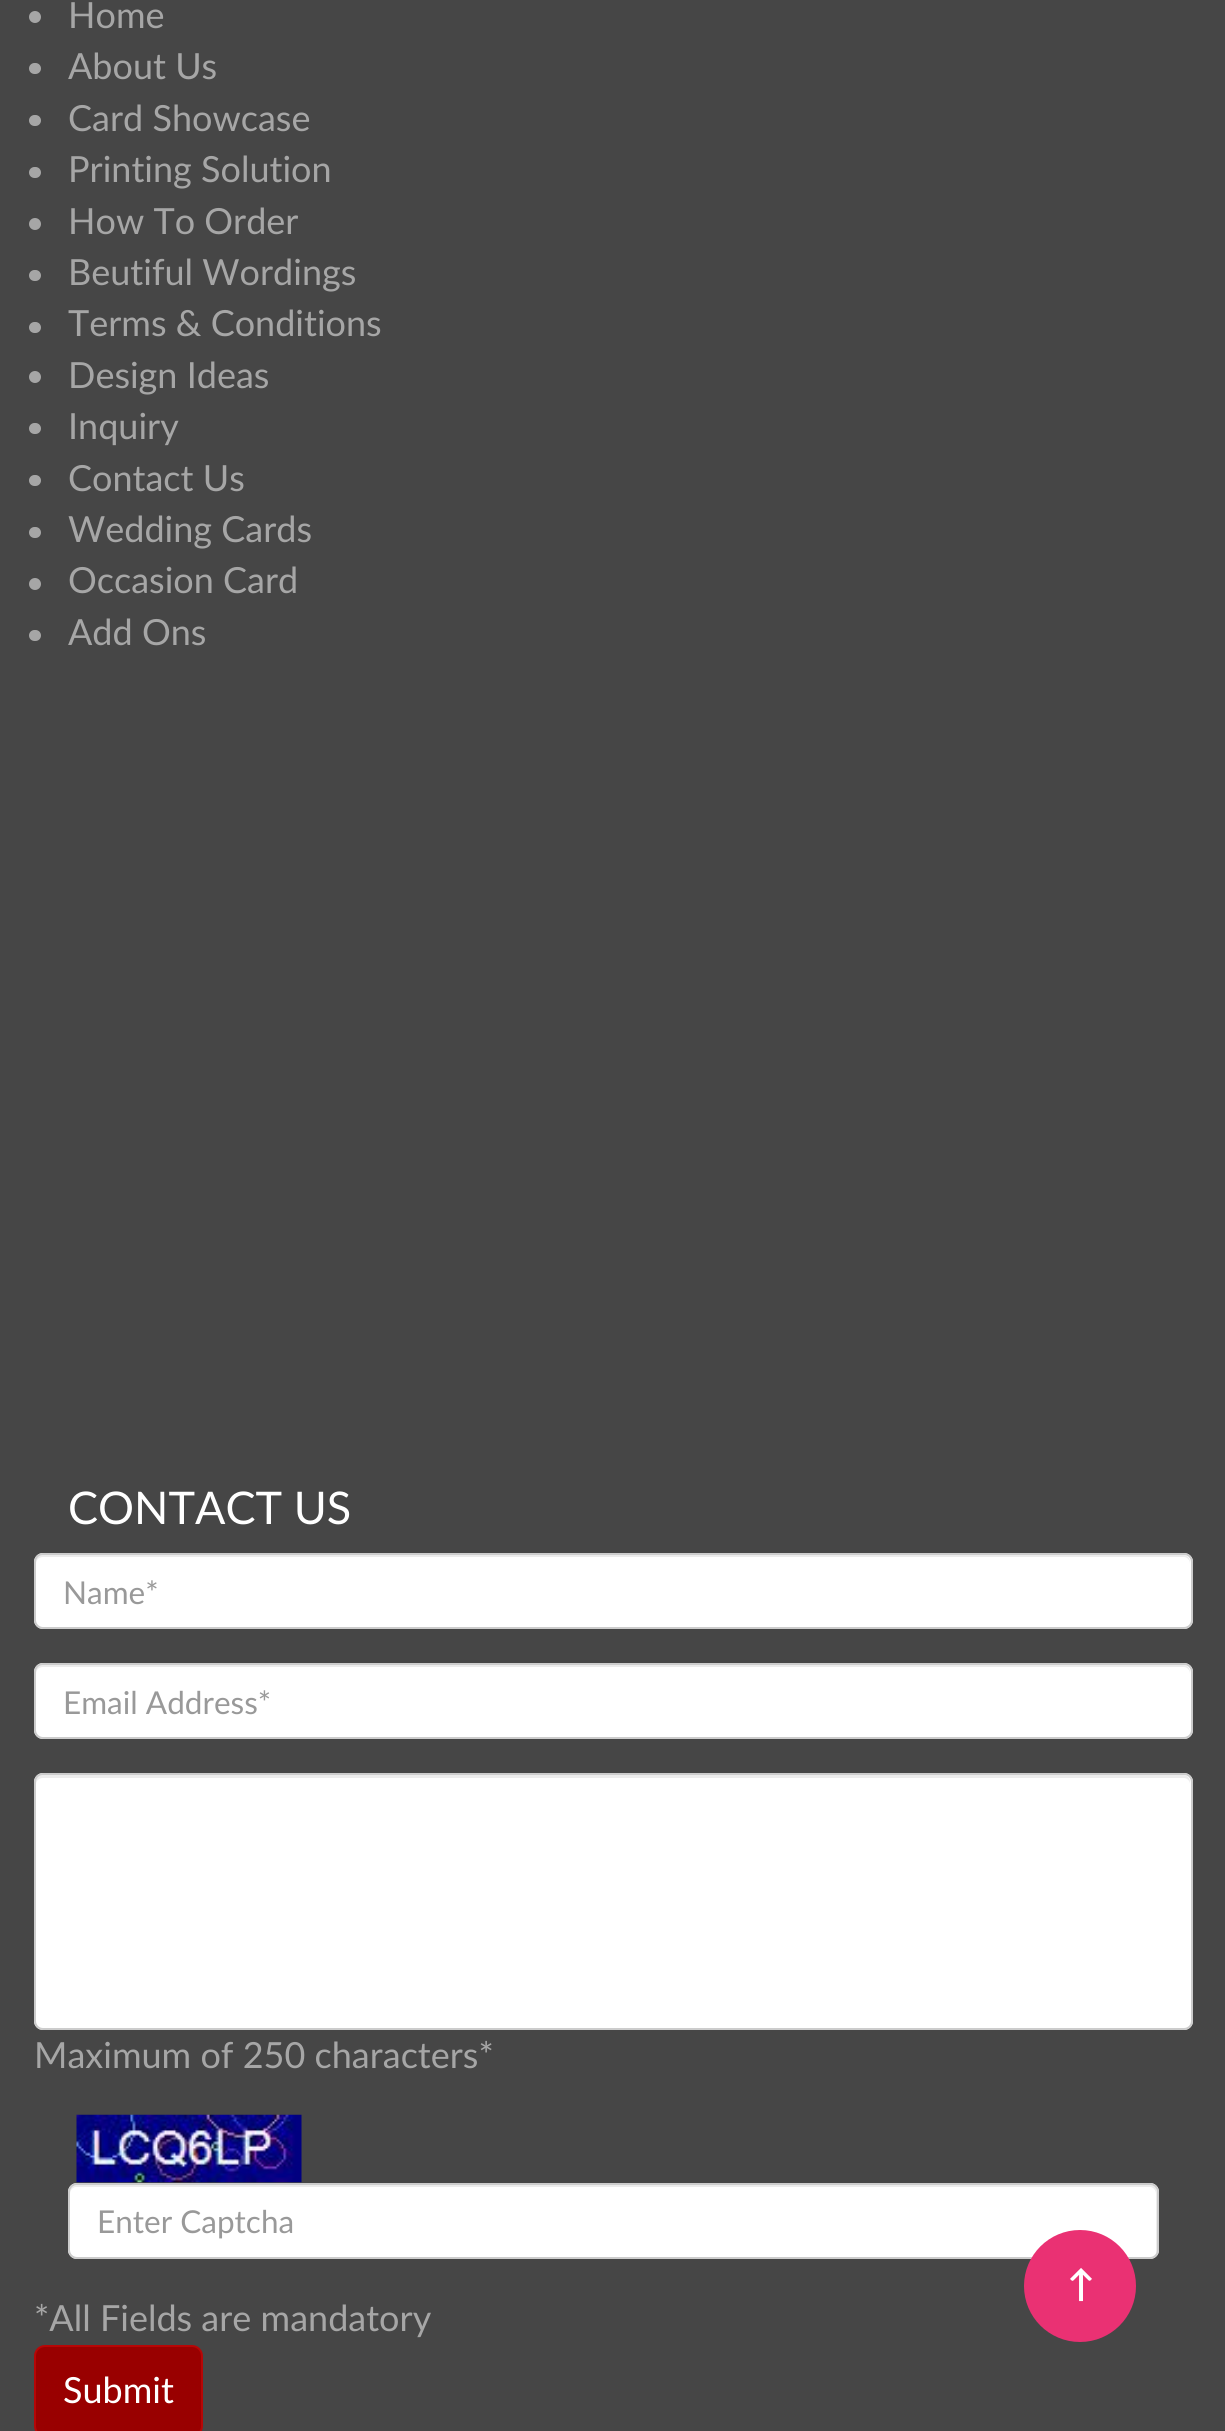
import math
import cairo

surface = cairo.ImageSurface(cairo.FORMAT_RGB24, 1225, 2431)
c = cairo.Context(surface)
options = cairo.FontOptions()
options.set_hint_metrics(cairo.HINT_METRICS_OFF)
options.set_hint_style(cairo.HINT_STYLE_NONE)
c.set_font_options(options)
c.set_miter_limit(4)
def C(code):
 c.set_source_rgb(*(v / 255 for v in bytes.fromhex(code[-6:])))
def F(family, size, italic, bold):
 c.select_font_face(family, cairo.FONT_SLANT_ITALIC if italic else cairo.FONT_SLANT_NORMAL, cairo.FONT_WEIGHT_BOLD if bold else cairo.FONT_WEIGHT_NORMAL)
 c.set_font_size(size)
def T(x, y, s):
 c.move_to(x, y)
 c.show_text(s)
def Q(x, y, w, h, r):
 c.new_sub_path()
 for i, (u, v) in enumerate([(x + w - r, y + h - r), (x + r, y + h - r), (x + r, y + r), (x + w - r, y + r)]):
  c.arc(u, v, r, i * math.pi / 2, (i + 1) * math.pi / 2)
 c.close_path()
def I(path, x, y, w, h):
 c.save()
 c.set_source_surface(cairo.ImageSurface.create_from_png(path), x, y)
 c.rectangle(x, y, w, h)
 c.fill()
 c.restore()
C('464646')
c.paint()
C('a6a6a6')
c.arc(35,17,6,0,2 * math.pi)
c.fill()
F('Lato',36,0,0)
T(68,28,'Home')
Q(29,63,12,11,5.5)
c.fill()
T(68,79,'About Us')
Q(29,115,12,11,5.5)
c.fill()
T(68,131,'Card Showcase')
Q(29,167,12,11,5.5)
c.fill()
T(68,182,'Printing Solution')
c.new_path()
c.arc(35,224,6,0,2 * math.pi)
c.fill()
T(68,234,'How To Order')
Q(29,270,12,11,5.5)
c.fill()
T(68,285,'Beutiful Wordings')
Q(29,322,12,11,5.5)
c.fill()
T(68,336,'Terms & Conditions')
c.new_path()
c.arc(35,377,6,0,2 * math.pi)
c.fill()
T(68,388,'Design Ideas')
Q(29,423,12,11,5.5)
c.fill()
T(68,439,'Inquiry')
Q(29,475,12,11,5.5)
c.fill()
T(68,491,'Contact Us')
Q(29,527,12,11,5.5)
c.fill()
T(68,542,'Wedding Cards')
c.new_path()
c.arc(35,584,6,0,2 * math.pi)
c.fill()
T(68,593,'Occasion Card')
Q(29,630,12,11,5.5)
c.fill()
T(68,645,'Add Ons')
F('Lato',45,0,0)
C('ffffff')
T(68,1524,'CONTACT US')
Q(34,1553,1159,76,9)
c.fill()
C('ececec')
c.new_path()
c.move_to(43,1557)
c.line_to(1184,1557)
c.curve_to(1187,1557,1190,1560,1190,1564)
c.line_to(1190,1562)
c.curve_to(1190,1558,1187,1555,1183,1555)
c.line_to(43,1555)
c.curve_to(39,1555,36,1558,36,1562)
c.line_to(36,1564)
c.curve_to(36,1560,39,1557,43,1557)
c.close_path()
c.fill()
Q(35,1554,1157,74,8)
C('cccccc')
c.stroke()
F('Lato',31.5,0,0)
C('999999')
T(63,1604,'Name*')
C('ffffff')
Q(34,1663,1159,76,9)
c.fill()
C('ececec')
c.new_path()
c.move_to(43,1667)
c.line_to(1184,1667)
c.curve_to(1187,1667,1190,1670,1190,1674)
c.line_to(1190,1672)
c.curve_to(1190,1668,1187,1665,1183,1665)
c.line_to(43,1665)
c.curve_to(39,1665,36,1668,36,1672)
c.line_to(36,1674)
c.curve_to(36,1670,39,1667,43,1667)
c.close_path()
c.fill()
Q(35,1664,1157,74,8)
C('cccccc')
c.stroke()
C('999999')
T(63,1714,'Email Address*')
C('ffffff')
Q(34,1773,1159,257,9)
c.fill()
C('ececec')
c.new_path()
c.move_to(43,1778)
c.line_to(1184,1778)
c.curve_to(1187,1778,1190,1781,1190,1784)
c.line_to(1190,1782)
c.curve_to(1190,1778,1187,1775,1183,1775)
c.line_to(43,1775)
c.curve_to(39,1775,36,1778,36,1782)
c.line_to(36,1784)
c.curve_to(36,1781,39,1778,43,1778)
c.close_path()
c.fill()
Q(35,1774,1157,255,8)
C('cccccc')
c.stroke()
F('Lato',36,0,0)
C('a6a6a6')
T(34,2068,'Maximum of 250 characters*')
I('1.png',76,2114,226,69)
C('ffffff')
Q(68,2183,1091,76,9)
c.fill()
C('ececec')
c.new_path()
c.move_to(76,2187)
c.line_to(1150,2187)
c.curve_to(1153,2187,1156,2190,1156,2194)
c.line_to(1156,2254)
c.curve_to(1157,2253,1157,2251,1157,2250)
c.line_to(1157,2192)
c.curve_to(1157,2188,1154,2185,1150,2185)
c.line_to(77,2185)
c.curve_to(73,2185,70,2188,70,2192)
c.line_to(70,2194)
c.curve_to(70,2190,73,2187,76,2187)
c.close_path()
c.fill()
Q(69,2184,1089,74,8)
C('cccccc')
c.stroke()
F('Lato',31.5,0,0)
C('999999')
T(97,2233,'Enter Captcha')
F('Lato',36,0,0)
C('a6a6a6')
T(34,2331,'*All Fields are mandatory')
C('990000')
Q(35,2346,167,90,10)
c.fill_preserve()
C('b70606')
c.stroke()
C('ffffff')
T(63,2403,'Submit')
C('ea3173')
c.new_path()
c.arc(1080,2286,56,0,2 * math.pi)
c.fill()
F('Lato',36,0,1)
C('ffffff')
T(1067,2297,'↑')
surface.write_to_png('o.png')
